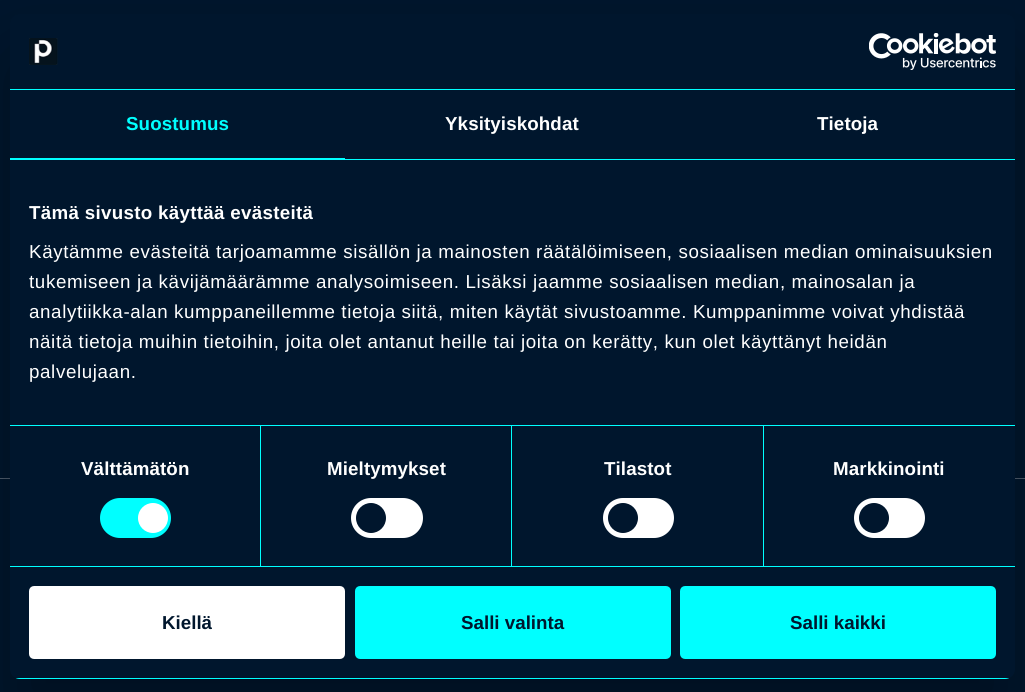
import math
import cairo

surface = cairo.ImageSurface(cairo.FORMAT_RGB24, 1025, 692)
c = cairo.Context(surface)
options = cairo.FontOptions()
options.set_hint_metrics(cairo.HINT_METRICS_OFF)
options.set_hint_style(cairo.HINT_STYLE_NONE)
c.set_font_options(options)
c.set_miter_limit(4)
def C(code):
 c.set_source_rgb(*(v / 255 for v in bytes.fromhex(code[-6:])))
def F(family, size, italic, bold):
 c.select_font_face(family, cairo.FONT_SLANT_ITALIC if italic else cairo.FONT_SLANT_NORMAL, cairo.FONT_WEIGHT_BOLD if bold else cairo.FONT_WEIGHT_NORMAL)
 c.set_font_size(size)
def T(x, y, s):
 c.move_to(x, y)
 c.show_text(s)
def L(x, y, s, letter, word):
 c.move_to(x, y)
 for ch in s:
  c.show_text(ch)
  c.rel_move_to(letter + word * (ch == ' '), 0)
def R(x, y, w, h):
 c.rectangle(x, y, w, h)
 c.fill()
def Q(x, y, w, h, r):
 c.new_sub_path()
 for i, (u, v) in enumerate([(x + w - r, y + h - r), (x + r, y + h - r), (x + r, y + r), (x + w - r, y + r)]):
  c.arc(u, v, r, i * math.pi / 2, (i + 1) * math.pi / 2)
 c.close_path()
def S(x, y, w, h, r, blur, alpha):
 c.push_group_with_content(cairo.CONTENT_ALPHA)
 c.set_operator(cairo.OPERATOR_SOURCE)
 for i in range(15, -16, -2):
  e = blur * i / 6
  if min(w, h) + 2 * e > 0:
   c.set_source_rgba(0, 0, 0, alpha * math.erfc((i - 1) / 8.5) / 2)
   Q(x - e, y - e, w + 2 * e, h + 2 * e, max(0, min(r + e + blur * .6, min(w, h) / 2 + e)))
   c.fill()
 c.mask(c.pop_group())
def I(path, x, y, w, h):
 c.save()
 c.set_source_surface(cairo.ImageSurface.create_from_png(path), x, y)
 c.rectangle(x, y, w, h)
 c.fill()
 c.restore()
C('00162d')
c.paint()
C('4d5c6c')
R(0,478,1025,1)
C('000000')
S(10,54,1005,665,10,42.5,.3)
C('00162d')
Q(10,14,1005,665,10)
c.fill()
C('00ffff')
R(10,89,1005,1)
I('1.png',29,38,29,27)
I('2.png',869,33,127,37)
R(10,159,1005,1)
R(10,158,335,1)
F('Liberation Sans',18.75,0,1)
L(126,130,'Suostumus',.1,0)
C('ffffff')
L(445,130,'Yksityiskohdat',.1,0)
L(817,130,'Tietoja',.1,0)
C('00ffff')
R(10,425,1005,1)
C('ffffff')
L(29,219,'Tämä sivusto käyttää evästeitä',.3,0)
F('Liberation Sans',18.75,0,0)
L(29,258,'Käytämme evästeitä tarjoamamme sisällön ja mainosten räätälöimiseen, sosiaalisen median ominaisuuksien',.62,0)
L(29,288,'tukemiseen ja kävijämäärämme analysoimiseen. Lisäksi jaamme sosiaalisen median, mainosalan ja',.62,0)
L(29,318,'analytiikka-alan kumppaneillemme tietoja siitä, miten käytät sivustoamme. Kumppanimme voivat yhdistää',.62,0)
L(29,348,'näitä tietoja muihin tietoihin, joita olet antanut heille tai joita on kerätty, kun olet käyttänyt heidän',.62,0)
L(29,378,'palvelujaan.',.62,0)
C('00ffff')
R(10,566,1005,1)
R(260,426,1,140)
F('Liberation Sans',18.75,0,1)
C('ffffff')
L(81,475,'Välttämätön',.1,0)
C('00ffff')
Q(100,498,71,40,20)
c.fill()
C('ffffff')
c.arc(153,518,15,0,2 * math.pi)
c.fill()
C('00ffff')
R(511,426,1,140)
C('ffffff')
L(327,475,'Mieltymykset',.1,0)
Q(351,498,72,40,20)
c.fill()
C('00162d')
c.arc(371,518,15,0,2 * math.pi)
c.fill()
C('00ffff')
R(763,426,1,140)
C('ffffff')
L(604,475,'Tilastot',.1,0)
Q(603,498,71,40,20)
c.fill()
C('00162d')
c.arc(623,518,15,0,2 * math.pi)
c.fill()
C('ffffff')
L(833,475,'Markkinointi',.1,0)
Q(854,498,71,40,20)
c.fill()
C('00162d')
c.arc(874,518,15,0,2 * math.pi)
c.fill()
c.save()
Q(10,14,1005,665,10)
c.clip()
C('00ffff')
R(10,678,1005,1)
c.restore()
C('ffffff')
Q(30.5,587.5,313,70,3.5)
c.fill_preserve()
c.set_line_width(3)
c.stroke()
C('00162d')
T(162,629,'Kiellä')
C('00ffff')
Q(356.5,587.5,313,70,3.5)
c.fill_preserve()
c.stroke()
C('00162d')
T(461,629,'Salli valinta')
C('00ffff')
Q(681.5,587.5,313,70,3.5)
c.fill_preserve()
c.stroke()
C('00162d')
T(790,629,'Salli kaikki')
surface.write_to_png('o.png')
